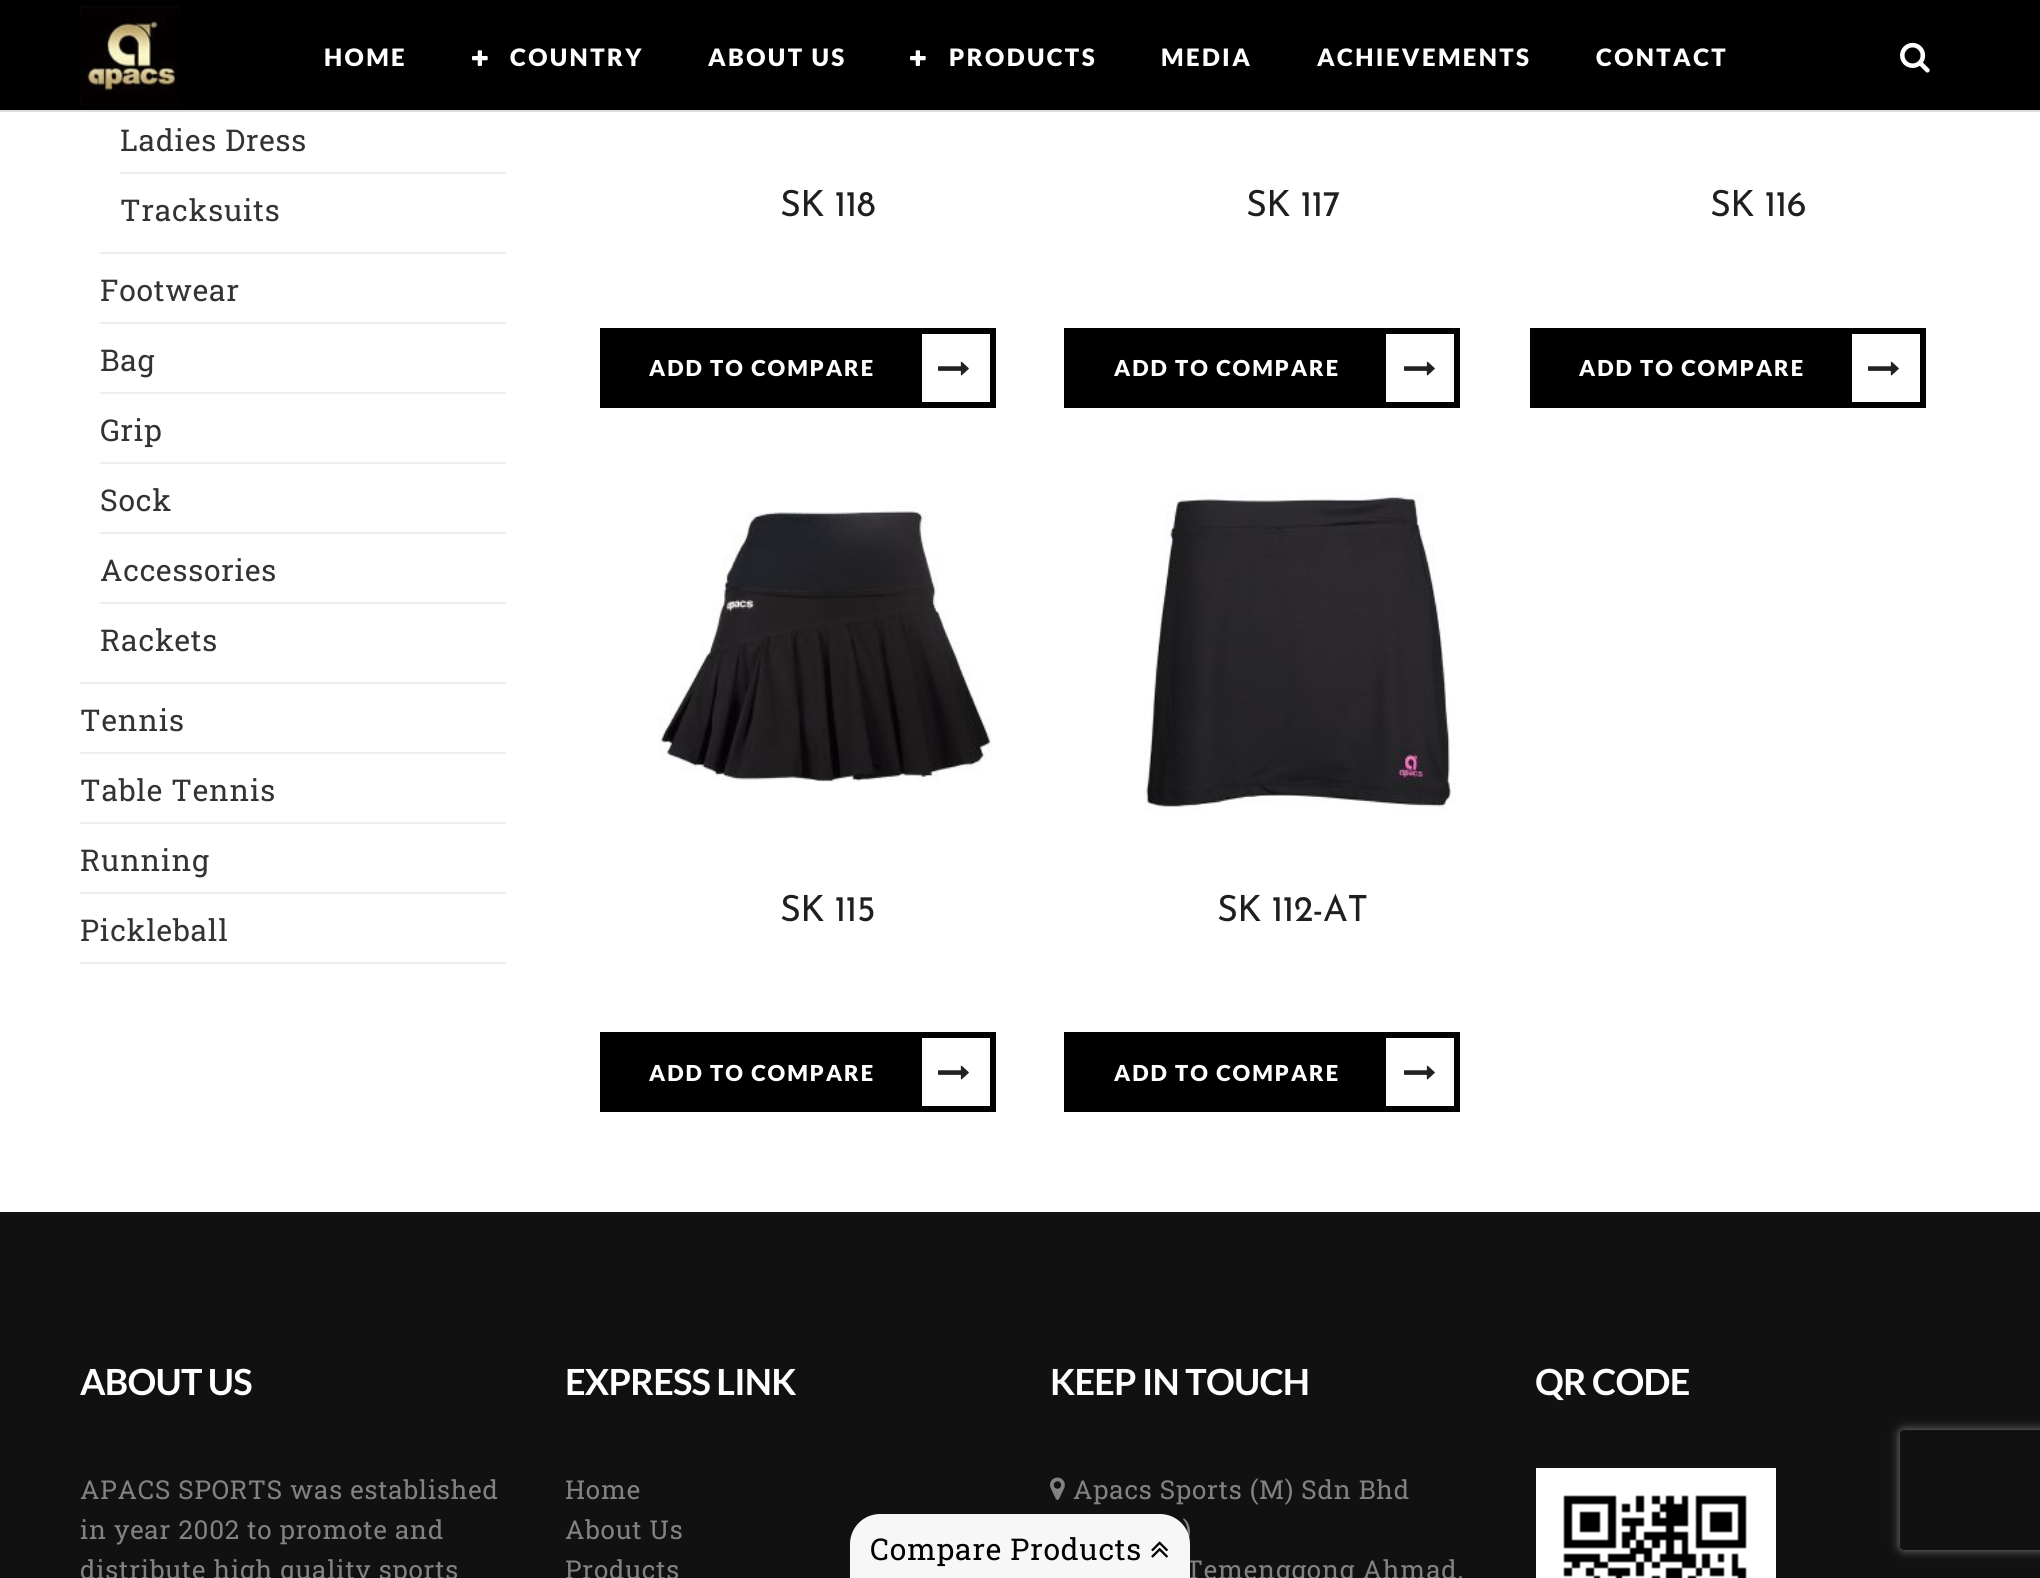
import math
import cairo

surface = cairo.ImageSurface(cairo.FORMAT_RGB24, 2040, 1578)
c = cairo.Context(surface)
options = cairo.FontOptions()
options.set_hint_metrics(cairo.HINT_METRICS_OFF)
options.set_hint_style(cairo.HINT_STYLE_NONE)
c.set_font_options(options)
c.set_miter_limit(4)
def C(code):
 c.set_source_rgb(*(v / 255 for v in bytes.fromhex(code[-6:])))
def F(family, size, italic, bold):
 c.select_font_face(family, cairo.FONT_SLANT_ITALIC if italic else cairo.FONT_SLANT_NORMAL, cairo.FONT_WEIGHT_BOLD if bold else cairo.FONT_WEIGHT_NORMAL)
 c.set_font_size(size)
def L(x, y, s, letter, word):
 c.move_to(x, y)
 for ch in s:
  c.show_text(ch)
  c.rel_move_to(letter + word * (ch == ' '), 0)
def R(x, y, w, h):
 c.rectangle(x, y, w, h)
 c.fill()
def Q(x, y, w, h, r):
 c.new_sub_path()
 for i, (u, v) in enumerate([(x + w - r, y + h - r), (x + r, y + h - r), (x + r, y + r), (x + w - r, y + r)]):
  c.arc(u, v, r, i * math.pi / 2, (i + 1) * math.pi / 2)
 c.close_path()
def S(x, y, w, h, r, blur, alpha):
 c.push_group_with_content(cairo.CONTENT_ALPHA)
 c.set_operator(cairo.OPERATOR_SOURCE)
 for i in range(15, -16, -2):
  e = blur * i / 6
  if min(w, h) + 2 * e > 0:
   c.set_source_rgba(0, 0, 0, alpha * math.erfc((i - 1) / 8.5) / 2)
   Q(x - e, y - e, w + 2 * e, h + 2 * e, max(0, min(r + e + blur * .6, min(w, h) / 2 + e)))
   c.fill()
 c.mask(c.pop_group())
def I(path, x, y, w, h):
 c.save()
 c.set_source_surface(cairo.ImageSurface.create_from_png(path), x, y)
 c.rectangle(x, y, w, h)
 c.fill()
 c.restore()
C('ffffff')
c.paint()
C('000000')
R(0,0,2040,110)
C('dddddd')
R(0,110,2040,2)
I('1.png',80,6,100,100)
F('Lato Black',24,0,0)
C('ffffff')
L(324,66,'HOME',2.4,0)
I('2.png',472,50,16,16)
L(510,66,'COUNTRY',2.4,0)
L(708,66,'ABOUT US',2.4,0)
I('2.png',910,50,16,16)
L(949,66,'PRODUCTS',2.4,0)
L(1161,66,'MEDIA',2.4,0)
L(1317,66,'ACHIEVEMENTS',2.4,0)
L(1596,66,'CONTACT',2.4,0)
I('3.png',1900,42,30,31)
C('eeeeee')
R(80,682,426,2)
R(100,252,406,2)
R(120,172,386,2)
F('Roboto Slab',30,0,0)
C('333333')
L(120,151,'Ladies Dress',.8,0)
L(120,221,'Tracksuits',.8,0)
C('eeeeee')
R(100,322,406,2)
C('333333')
L(100,301,'Footwear',.8,0)
C('eeeeee')
R(100,392,406,2)
C('333333')
L(100,371,'Bag',.8,0)
C('eeeeee')
R(100,462,406,2)
C('333333')
L(100,441,'Grip',.8,0)
C('eeeeee')
R(100,532,406,2)
C('333333')
L(100,511,'Sock',.8,0)
C('eeeeee')
R(100,602,406,2)
C('333333')
L(100,581,'Accessories',.8,0)
L(100,651,'Rackets',.8,0)
C('eeeeee')
R(80,752,426,2)
C('333333')
L(80,731,'Tennis',.8,0)
C('eeeeee')
R(80,822,426,2)
C('333333')
L(80,801,'Table Tennis',.8,0)
C('eeeeee')
R(80,892,426,2)
C('333333')
L(80,871,'Running',.8,0)
C('eeeeee')
R(80,962,426,2)
C('333333')
L(80,941,'Pickleball',.8,0)
F('Josefin Sans',36,0,0)
C('1f1f1f')
L(780,216,'SK 118',-.75,0)
C('000000')
R(600,328,396,80)
F('Lato Black',22,0,0)
C('ffffff')
L(649,376,'ADD TO COMPARE',2,0)
R(922,334,68,68)
I('4.png',938,361,31,15)
F('Josefin Sans',36,0,0)
C('1f1f1f')
L(1246,216,'SK 117',-.75,0)
C('000000')
R(1064,328,396,80)
F('Lato Black',22,0,0)
C('ffffff')
L(1114,376,'ADD TO COMPARE',2,0)
R(1386,334,68,68)
I('4.png',1404,361,31,15)
F('Josefin Sans',36,0,0)
C('1f1f1f')
L(1710,216,'SK 116',-.75,0)
C('000000')
R(1530,328,396,80)
F('Lato Black',22,0,0)
C('ffffff')
L(1579,376,'ADD TO COMPARE',2,0)
R(1852,334,68,68)
I('4.png',1868,361,31,15)
I('5.png',659,506,333,276)
F('Josefin Sans',36,0,0)
C('1f1f1f')
L(780,921,'SK 115',-.75,0)
C('000000')
R(600,1032,396,80)
F('Lato Black',22,0,0)
C('ffffff')
L(649,1081,'ADD TO COMPARE',2,0)
R(922,1038,68,68)
I('4.png',938,1065,31,15)
I('6.png',1144,491,312,323)
F('Josefin Sans',36,0,0)
C('1f1f1f')
L(1217,921,'SK 112-AT',-.75,0)
C('000000')
R(1064,1032,396,80)
F('Lato Black',22,0,0)
C('ffffff')
L(1114,1081,'ADD TO COMPARE',2,0)
R(1386,1038,68,68)
I('4.png',1404,1065,31,15)
C('111111')
R(0,1212,2040,366)
F('Lato',36,0,1)
C('ffffff')
L(80,1395,'ABOUT US',-.75,0)
F('Roboto Slab',26,0,0)
C('828282')
L(80,1499,'APACS SPORTS was established',.8,0)
L(80,1539,'in year 2002 to promote and',.8,0)
L(80,1579,'distribute high quality sports',.8,0)
F('Lato',36,0,1)
C('ffffff')
L(565,1395,'EXPRESS LINK',-.75,0)
F('Roboto Slab',26,0,0)
C('828282')
L(565,1499,'Home',.8,0)
L(565,1539,'About Us',.8,0)
L(565,1579,'Products',.8,0)
F('Lato',36,0,1)
C('ffffff')
L(1050,1395,'KEEP IN TOUCH',-.75,0)
I('7.png',1050,1477,15,23)
F('Roboto Slab',26,0,0)
C('828282')
L(1073,1499,'Apacs Sports (M) Sdn Bhd',.8,0)
L(1183,1539,')',.8,0)
L(1185,1579,'Temenggong Ahmad,',.8,0)
F('Lato',36,0,1)
C('ffffff')
L(1535,1395,'QR CODE',-.75,0)
I('8.png',1536,1468,240,110)
c.save()
c.set_fill_rule(cairo.FILL_RULE_EVEN_ODD)
c.new_path()
c.move_to(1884,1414)
c.line_to(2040,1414)
c.line_to(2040,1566)
c.line_to(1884,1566)
c.close_path()
c.move_to(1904,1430)
c.line_to(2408,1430)
c.curve_to(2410,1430,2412,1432,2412,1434)
c.line_to(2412,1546)
c.curve_to(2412,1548,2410,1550,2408,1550)
c.line_to(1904,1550)
c.curve_to(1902,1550,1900,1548,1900,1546)
c.line_to(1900,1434)
c.curve_to(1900,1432,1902,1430,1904,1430)
c.close_path()
c.clip()
C('808080')
S(1900,1430,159,120,4,5,1)
c.restore()
C('f7f7f7')
c.new_path()
c.move_to(880,1514)
c.line_to(1160,1514)
c.curve_to(1176.5,1514,1190,1527.5,1190,1544)
c.line_to(1190,1578)
c.line_to(850,1578)
c.line_to(850,1544)
c.curve_to(850,1527.5,863.5,1514,880,1514)
c.close_path()
c.fill()
F('Roboto Slab',30,0,0)
C('000000')
L(870,1560,'Compare Products',.8,0)
I('9.png',1151,1541,17,17)
surface.write_to_png('o.png')
